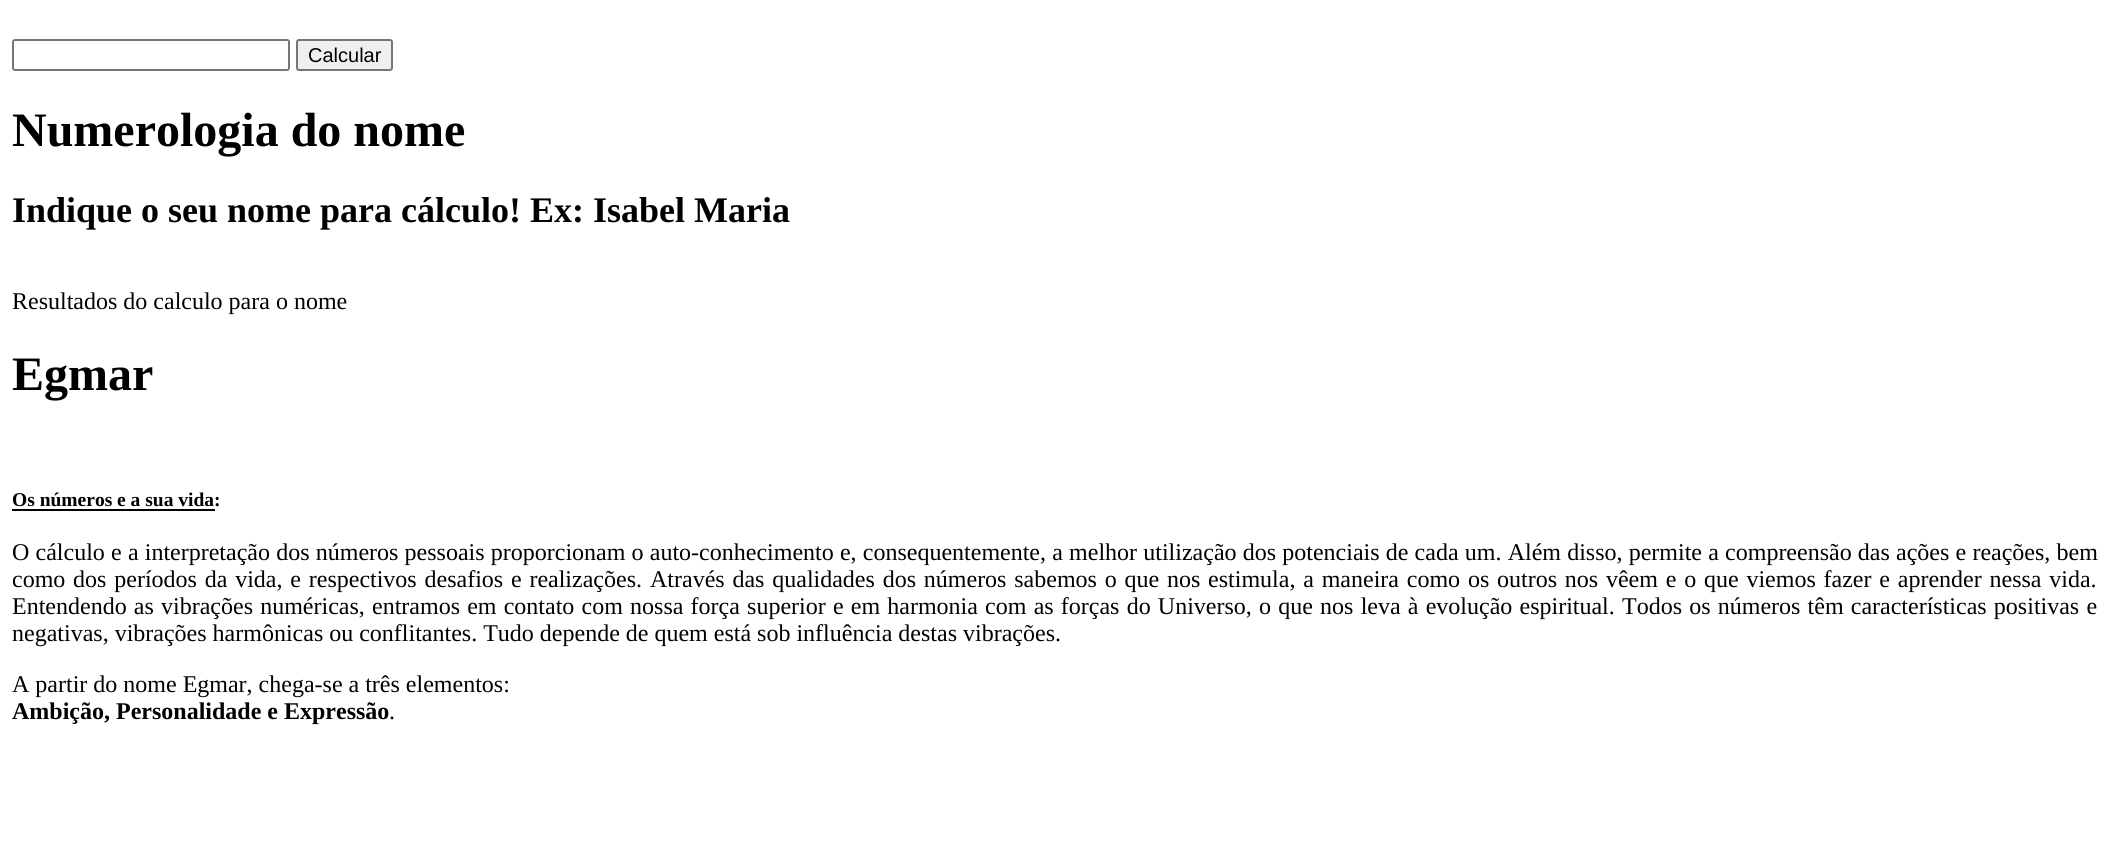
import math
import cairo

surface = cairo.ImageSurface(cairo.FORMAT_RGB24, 2108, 862)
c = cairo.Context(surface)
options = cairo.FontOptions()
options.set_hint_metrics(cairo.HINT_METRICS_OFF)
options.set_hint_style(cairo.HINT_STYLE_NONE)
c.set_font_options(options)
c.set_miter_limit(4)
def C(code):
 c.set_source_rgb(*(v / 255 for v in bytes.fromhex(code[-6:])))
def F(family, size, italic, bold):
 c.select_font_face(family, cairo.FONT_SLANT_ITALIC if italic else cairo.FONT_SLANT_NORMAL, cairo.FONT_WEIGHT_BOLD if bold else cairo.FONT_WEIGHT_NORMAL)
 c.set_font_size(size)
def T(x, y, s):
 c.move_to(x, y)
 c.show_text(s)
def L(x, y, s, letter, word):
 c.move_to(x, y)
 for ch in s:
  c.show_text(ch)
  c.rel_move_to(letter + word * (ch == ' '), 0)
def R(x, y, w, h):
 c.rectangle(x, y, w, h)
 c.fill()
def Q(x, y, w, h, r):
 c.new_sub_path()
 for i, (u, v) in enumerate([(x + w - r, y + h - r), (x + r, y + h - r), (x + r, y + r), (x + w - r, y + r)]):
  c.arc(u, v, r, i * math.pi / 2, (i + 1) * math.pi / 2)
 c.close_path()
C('ffffff')
c.paint()
Q(13,40,276,30,2)
C('767676')
c.stroke()
C('efefef')
Q(297,40,95,30,2)
c.fill_preserve()
C('767676')
c.stroke()
F('Liberation Sans',20,0,0)
C('000000')
T(308,62,'Calcular')
F('Liberation Serif',48,0,1)
T(12,146,'Numerologia do nome')
F('Liberation Serif',36,0,1)
T(12,222,'Indique o seu nome para cálculo! Ex: Isabel Maria')
F('Liberation Serif',24,0,0)
T(12,309,'Resultados do calculo para o nome')
F('Liberation Serif',48,0,1)
T(12,390,'Egmar')
F('Liberation Serif',19.5,0,1)
T(12,506,'Os números e a sua vida:')
R(12,509,203,2)
F('Liberation Serif',24,0,0)
L(12,560,'O cálculo e a interpretação dos números pessoais proporcionam o auto-conhecimento e, consequentemente, a melhor utilização dos potenciais de cada um. Além disso, permite a compreensão das ações e reações, bem',0,.2)
L(12,587,'como dos períodos da vida, e respectivos desafios e realizações.',0,1.8)
L(650,587,'Através das qualidades dos números sabemos o que nos estimula, a maneira como os outros nos vêem e o que viemos fazer e aprender nessa vida.',0,1.8)
L(12,614,'Entendendo as vibrações numéricas, entramos em contato com nossa força superior e em harmonia com as forças do Universo, o que nos leva à evolução espiritual. Todos os números têm características positivas e',0,1.2)
T(12,641,'negativas, vibrações harmônicas ou conflitantes. Tudo depende de quem está sob influência destas vibrações.')
T(12,692,'A partir do nome Egmar, chega-se a três elementos:')
F('Liberation Serif',24,0,1)
T(12,719,'Ambição, Personalidade e Expressão')
F('Liberation Serif',24,0,0)
T(389,719,'.')
surface.write_to_png('o.png')
